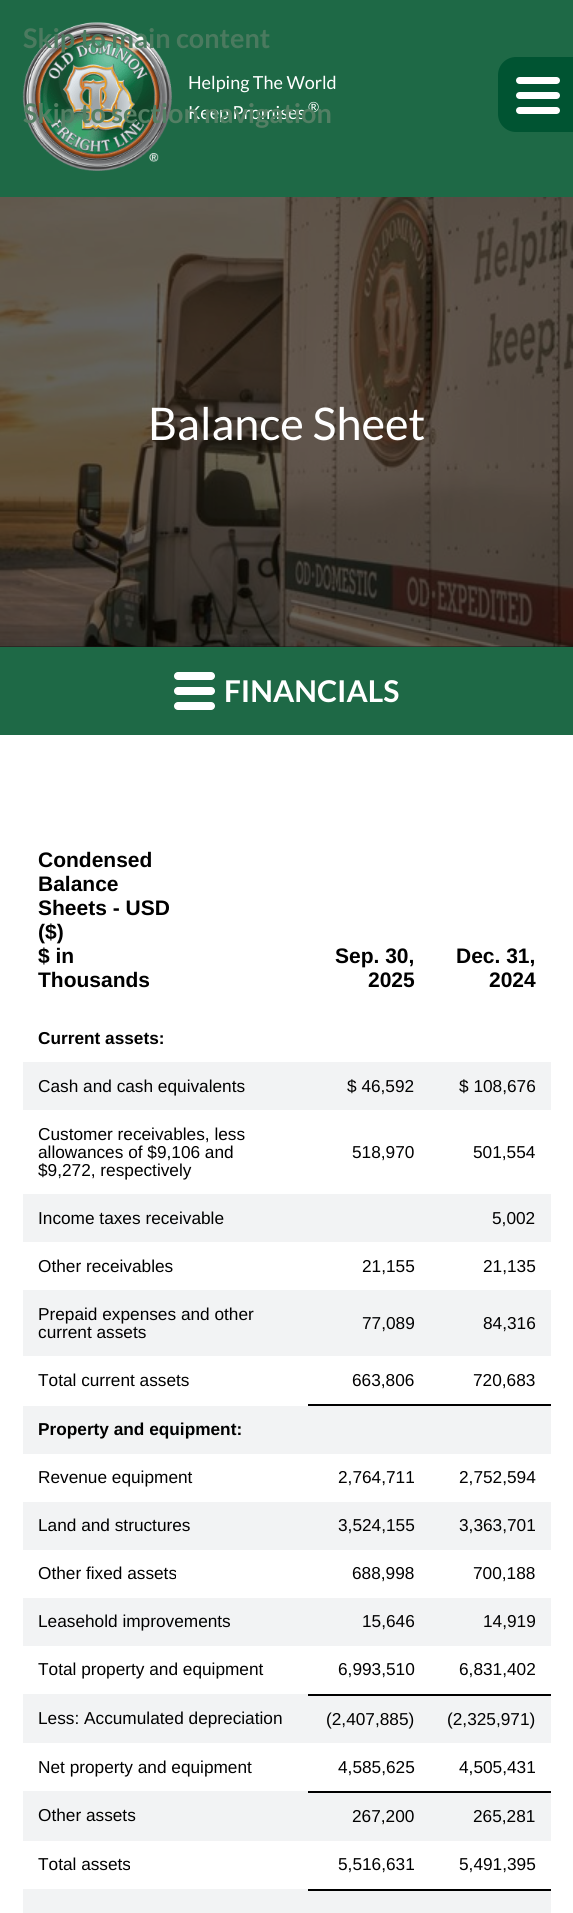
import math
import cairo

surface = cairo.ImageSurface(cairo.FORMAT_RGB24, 573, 1913)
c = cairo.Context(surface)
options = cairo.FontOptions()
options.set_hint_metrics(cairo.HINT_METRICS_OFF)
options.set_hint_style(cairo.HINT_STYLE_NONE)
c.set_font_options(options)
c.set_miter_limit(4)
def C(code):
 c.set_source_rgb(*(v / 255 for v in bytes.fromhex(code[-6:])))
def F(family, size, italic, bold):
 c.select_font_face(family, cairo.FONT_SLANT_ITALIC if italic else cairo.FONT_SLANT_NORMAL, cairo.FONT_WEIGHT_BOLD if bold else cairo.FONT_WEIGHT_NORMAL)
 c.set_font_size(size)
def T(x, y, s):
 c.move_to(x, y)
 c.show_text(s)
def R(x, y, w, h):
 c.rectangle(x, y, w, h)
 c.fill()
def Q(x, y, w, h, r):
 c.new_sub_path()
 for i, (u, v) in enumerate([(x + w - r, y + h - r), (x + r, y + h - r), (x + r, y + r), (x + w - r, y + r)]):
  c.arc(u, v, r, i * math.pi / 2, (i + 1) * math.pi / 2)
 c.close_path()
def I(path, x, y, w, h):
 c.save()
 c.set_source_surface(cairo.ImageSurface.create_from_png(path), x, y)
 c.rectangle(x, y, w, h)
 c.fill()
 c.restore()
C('ffffff')
c.paint()
C('1e6946')
R(0,0,573,197)
I('1.png',22,22,150,149)
F('Lato',27,0,1)
C('4b7a5f')
T(23,48,'Skip to main content')
F('Lato',18,0,0)
C('ffffff')
T(188,119,'Keep Promises')
F('Lato',14,0,0)
T(308,112,'®')
F('Lato',27,0,1)
C('547f64')
T(23,123,'Skip to section navigation')
F('Lato',18,0,0)
C('ffffff')
T(188,89,'Helping The World')
C('005432')
c.new_path()
c.move_to(516,57)
c.line_to(573,57)
c.line_to(573,132)
c.line_to(516,132)
c.curve_to(506,132,498,124,498,114)
c.line_to(498,75)
c.curve_to(498,65,506,57,516,57)
c.close_path()
c.fill()
C('ffffff')
Q(516,77,44,7,3.5)
c.fill()
Q(516,92,44,7,3.5)
c.fill()
Q(516,107,44,7,3.5)
c.fill()
C('141414')
R(0,646,573,1)
I('2.png',0,197,573,450)
F('Lato',45,0,0)
C('ffffff')
T(148,440,'Balance Sheet')
C('1e6946')
R(0,647,573,88)
C('ffffff')
Q(174,672,41,8,4)
c.fill()
Q(174,687,41,8,4)
c.fill()
Q(174,702,41,8,4)
c.fill()
F('Lato',30,0,1)
T(224,702,'FINANCIALS')
F('Liberation Sans',21,0,1)
C('000000')
T(38,867,'Condensed')
T(38,891,'Balance')
T(38,915,'Sheets - USD')
T(38,939,'($)')
T(38,963,'$ in')
T(38,987,'Thousands')
T(335,963,'Sep. 30,')
T(368,987,'2025')
T(456,963,'Dec. 31,')
T(489,987,'2024')
F('Liberation Sans',17.25,0,1)
T(38,1044,'Current assets:')
C('f2f3f4')
R(23,1062,528,48)
F('Liberation Sans',17.25,0,0)
C('000000')
T(38,1092,'Cash and cash equivalents')
T(347,1092,'$ 46,592')
T(459,1092,'$ 108,676')
T(38,1140,'Customer receivables, less')
T(38,1158,'allowances of $9,106 and')
T(38,1176,'$9,272, respectively')
T(352,1158,'518,970')
T(473,1158,'501,554')
C('f2f3f4')
R(23,1194,528,48)
C('000000')
T(38,1224,'Income taxes receivable')
T(492,1224,'5,002')
T(38,1272,'Other receivables')
T(362,1272,'21,155')
T(483,1272,'21,135')
C('f2f3f4')
R(23,1290,528,66)
C('000000')
T(38,1320,'Prepaid expenses and other')
T(38,1338,'current assets')
T(362,1329,'77,089')
T(483,1329,'84,316')
T(38,1386,'Total current assets')
T(352,1386,'663,806')
R(308,1404,243,2)
T(473,1386,'720,683')
C('f2f3f4')
R(23,1406,528,48)
F('Liberation Sans',17.25,0,1)
C('000000')
T(38,1435,'Property and equipment:')
F('Liberation Sans',17.25,0,0)
T(38,1483,'Revenue equipment')
T(338,1483,'2,764,711')
T(459,1483,'2,752,594')
C('f2f3f4')
R(23,1502,528,48)
C('000000')
T(38,1531,'Land and structures')
T(338,1531,'3,524,155')
T(459,1531,'3,363,701')
T(38,1579,'Other fixed assets')
T(352,1579,'688,998')
T(473,1579,'700,188')
C('f2f3f4')
R(23,1598,528,48)
C('000000')
T(38,1627,'Leasehold improvements')
T(362,1627,'15,646')
T(483,1627,'14,919')
T(38,1675,'Total property and equipment')
T(338,1675,'6,993,510')
C('f2f3f4')
R(23,1694,528,49)
C('000000')
R(308,1694,243,2)
T(459,1675,'6,831,402')
T(38,1724,'Less: Accumulated depreciation')
T(326,1725,'(2,407,885)')
T(447,1725,'(2,325,971)')
T(38,1773,'Net property and equipment')
T(338,1773,'4,585,625')
C('f2f3f4')
R(23,1791,528,50)
C('000000')
R(308,1791,243,2)
T(459,1773,'4,505,431')
T(38,1821,'Other assets')
T(352,1822,'267,200')
T(473,1822,'265,281')
T(38,1870,'Total assets')
T(338,1870,'5,516,631')
C('f2f3f4')
R(23,1889,528,24)
C('000000')
R(308,1889,243,2)
T(459,1870,'5,491,395')
surface.write_to_png('o.png')
